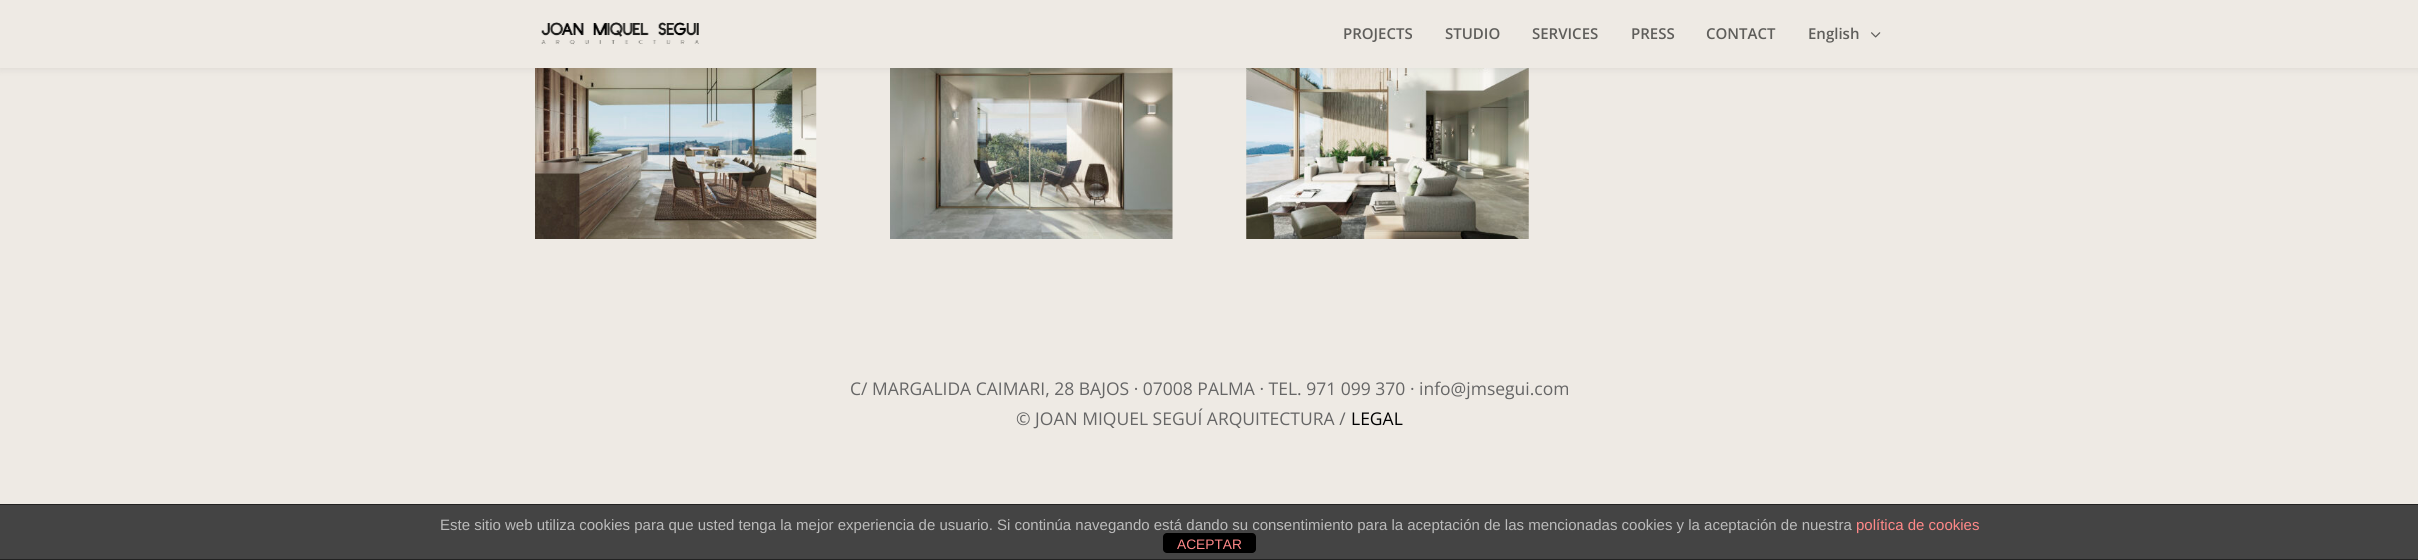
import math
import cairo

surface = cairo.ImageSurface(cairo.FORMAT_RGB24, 2418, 560)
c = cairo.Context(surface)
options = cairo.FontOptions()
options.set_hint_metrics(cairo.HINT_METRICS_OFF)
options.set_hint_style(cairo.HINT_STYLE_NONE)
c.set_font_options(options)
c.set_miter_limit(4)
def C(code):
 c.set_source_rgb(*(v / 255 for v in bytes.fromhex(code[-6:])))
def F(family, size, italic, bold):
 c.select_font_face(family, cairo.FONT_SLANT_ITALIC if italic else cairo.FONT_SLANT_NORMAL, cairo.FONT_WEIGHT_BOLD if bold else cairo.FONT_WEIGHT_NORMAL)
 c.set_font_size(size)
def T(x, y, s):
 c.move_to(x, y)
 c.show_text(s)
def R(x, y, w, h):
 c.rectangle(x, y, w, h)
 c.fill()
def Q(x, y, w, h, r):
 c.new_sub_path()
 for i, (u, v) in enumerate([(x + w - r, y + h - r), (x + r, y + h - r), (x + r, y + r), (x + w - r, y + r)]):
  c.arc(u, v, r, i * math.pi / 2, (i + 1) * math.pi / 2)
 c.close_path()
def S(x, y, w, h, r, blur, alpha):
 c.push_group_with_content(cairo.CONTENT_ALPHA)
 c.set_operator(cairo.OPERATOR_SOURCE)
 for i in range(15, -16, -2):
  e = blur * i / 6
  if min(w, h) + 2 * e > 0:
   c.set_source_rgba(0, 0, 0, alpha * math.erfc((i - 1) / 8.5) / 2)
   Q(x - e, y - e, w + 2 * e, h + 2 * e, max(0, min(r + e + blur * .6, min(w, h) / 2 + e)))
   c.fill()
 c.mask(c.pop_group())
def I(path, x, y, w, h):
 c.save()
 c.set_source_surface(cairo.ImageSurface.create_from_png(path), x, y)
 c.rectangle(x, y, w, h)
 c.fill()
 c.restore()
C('eeeae4')
c.paint()
I('3.png',535,68,282,171)
I('4.png',890,68,283,171)
I('5.png',1246,68,283,171)
C('000000')
S(0,0,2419,68,0,4.5,.1)
C('eeeae4')
R(0,0,2418,68)
I('1.png',541,22,158,23)
F('Open Sans SemiBold',15,0,0)
C('5f5e5b')
T(1343,39,'PROJECTS')
T(1445,39,'STUDIO')
T(1532,39,'SERVICES')
T(1631,39,'PRESS')
T(1706,39,'CONTACT')
T(1808,39,'English')
I('2.png',1871,32,10,6)
F('Open Sans',17.5,0,0)
C('666666')
T(850,395,'C/ MARGALIDA CAIMARI, 28 BAJOS · 07008 PALMA · TEL. 971 099 370 · info@jmsegui.com')
T(1016,425,'© JOAN MIQUEL SEGUÍ ARQUITECTURA /')
C('000000')
T(1351,425,'LEGAL')
C('444444')
R(0,505,2418,54)
C('222222')
R(0,504,2418,1)
R(0,559,2418,1)
C('000000')
Q(1163,533,93,20,4)
c.fill()
F('Liberation Sans',15,0,0)
C('bbbbbb')
T(440,530,'Este sitio web utiliza cookies para que usted tenga la mejor experiencia de usuario. Si continúa navegando está dando su consentimiento para la aceptación de las mencionadas cookies y la aceptación de nuestra')
C('ff8888')
T(1856,530,'política de cookies')
F('Liberation Sans',13.75,0,0)
T(1177,549,'ACEPTAR')
surface.write_to_png('o.png')
